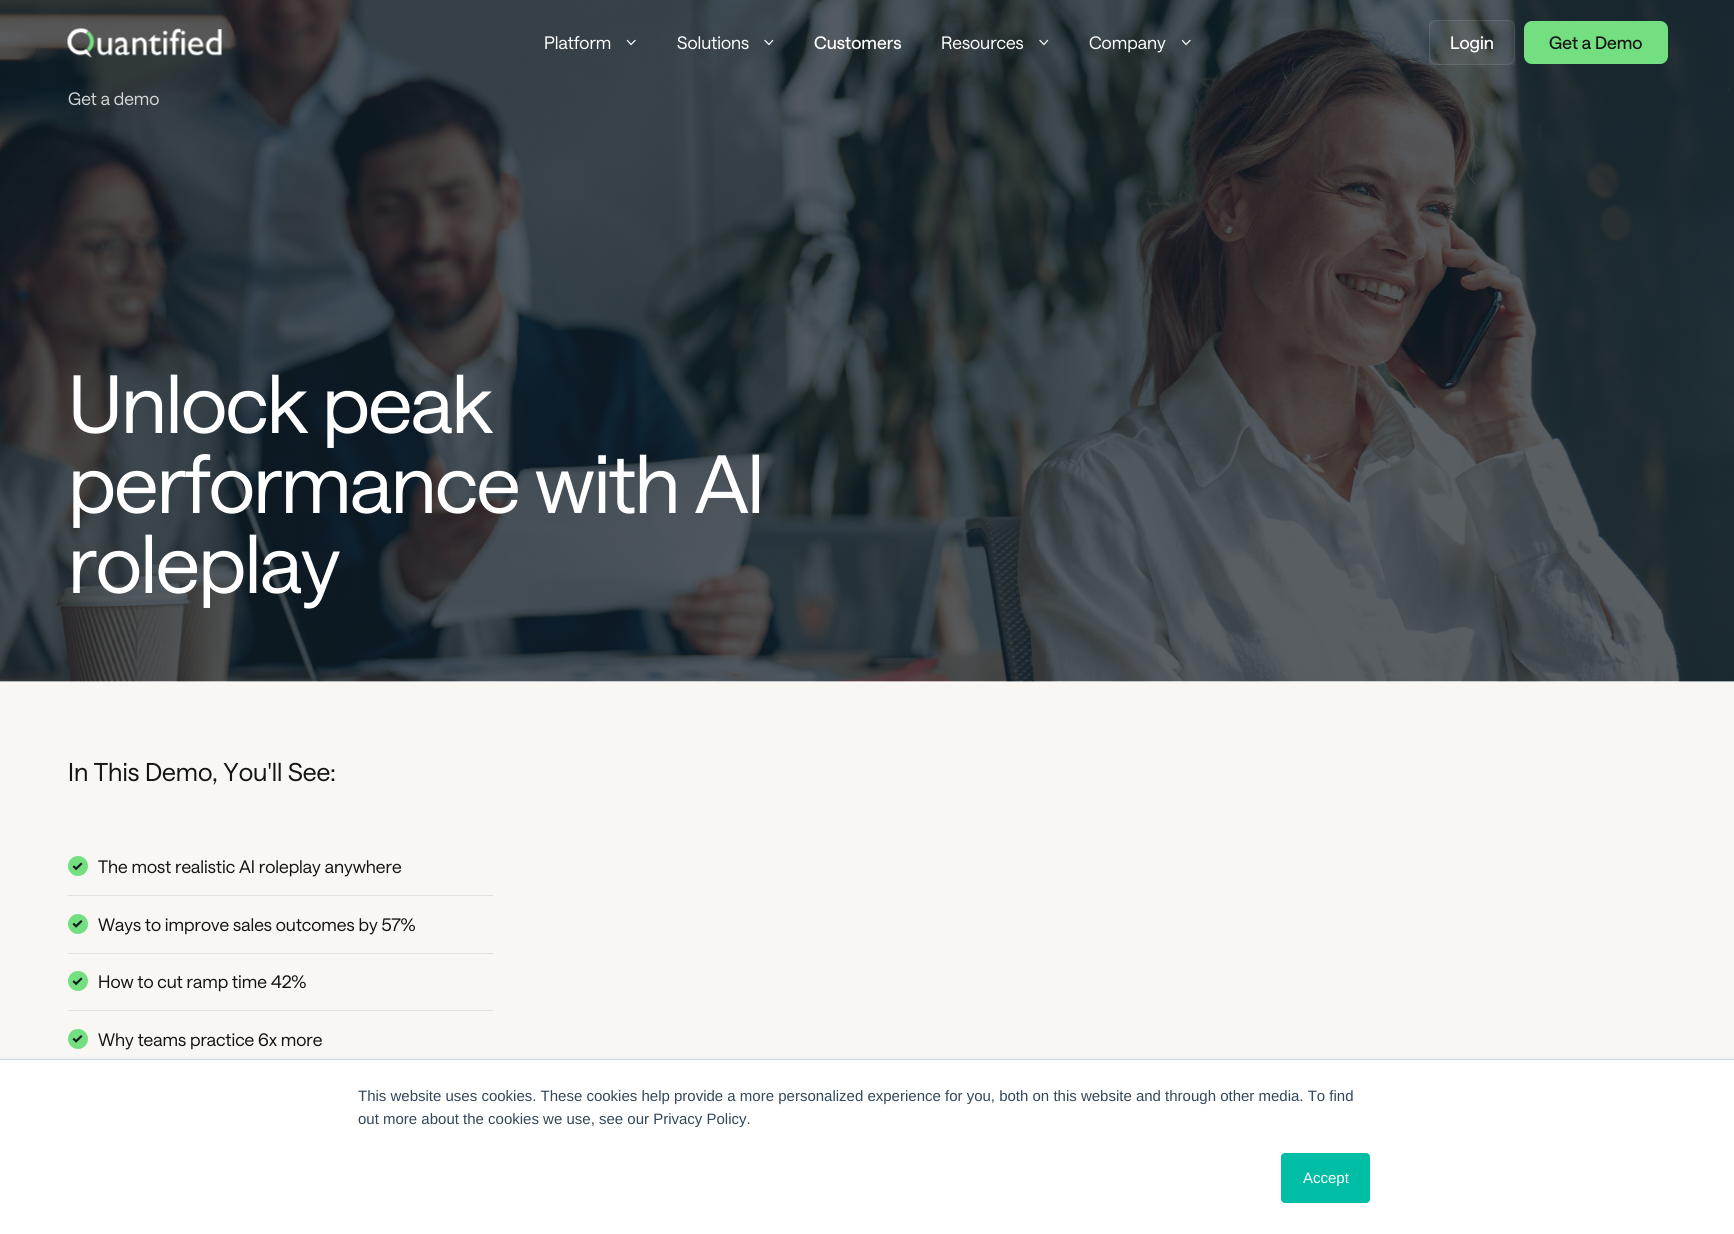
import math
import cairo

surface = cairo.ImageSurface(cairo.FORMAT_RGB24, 1734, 1234)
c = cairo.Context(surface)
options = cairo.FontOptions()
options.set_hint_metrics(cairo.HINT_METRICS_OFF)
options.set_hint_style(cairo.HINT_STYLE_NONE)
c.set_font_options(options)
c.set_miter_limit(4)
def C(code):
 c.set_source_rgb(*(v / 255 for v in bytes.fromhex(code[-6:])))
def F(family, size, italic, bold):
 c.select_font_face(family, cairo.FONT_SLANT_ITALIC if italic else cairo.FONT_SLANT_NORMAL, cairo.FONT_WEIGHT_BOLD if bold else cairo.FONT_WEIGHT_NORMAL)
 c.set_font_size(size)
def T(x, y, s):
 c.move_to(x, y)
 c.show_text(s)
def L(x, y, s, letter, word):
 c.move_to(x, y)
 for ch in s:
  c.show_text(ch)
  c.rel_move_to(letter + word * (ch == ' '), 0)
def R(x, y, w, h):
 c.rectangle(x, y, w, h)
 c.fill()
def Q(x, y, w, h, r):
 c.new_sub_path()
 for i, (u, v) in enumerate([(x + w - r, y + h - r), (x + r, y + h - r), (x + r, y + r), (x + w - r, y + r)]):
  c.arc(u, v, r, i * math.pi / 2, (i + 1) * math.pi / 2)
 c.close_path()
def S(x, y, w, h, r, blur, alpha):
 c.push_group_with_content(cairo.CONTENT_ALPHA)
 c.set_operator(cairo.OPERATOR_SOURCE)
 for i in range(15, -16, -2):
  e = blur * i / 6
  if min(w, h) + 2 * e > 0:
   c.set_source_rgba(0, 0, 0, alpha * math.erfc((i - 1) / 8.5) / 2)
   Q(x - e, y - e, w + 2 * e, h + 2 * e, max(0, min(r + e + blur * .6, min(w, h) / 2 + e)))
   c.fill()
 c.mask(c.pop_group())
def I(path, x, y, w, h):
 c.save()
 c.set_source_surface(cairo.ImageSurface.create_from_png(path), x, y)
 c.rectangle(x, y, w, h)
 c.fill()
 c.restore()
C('f8f7f4')
c.paint()
I('1.png',0,0,1734,682)
I('2.png',67,28,155,30)
F('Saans',17.5,0,0)
C('ffffff')
T(544,49,'Platform')
c.new_path()
c.move_to(627.5,40.5)
c.line_to(631,44.5)
c.line_to(635,40.5)
c.set_line_width(1.2)
c.set_line_cap(cairo.LINE_CAP_SQUARE)
c.stroke()
T(677,49,'Solutions')
c.new_path()
c.move_to(765,40.5)
c.line_to(769,44.5)
c.line_to(772.5,40.5)
c.stroke()
F('Saans Medium',17.5,0,0)
T(814,49,'Customers')
F('Saans',17.5,0,0)
T(941,49,'Resources')
c.new_path()
c.move_to(1040,40.5)
c.line_to(1044,44.5)
c.line_to(1047.5,40.5)
c.stroke()
T(1089,49,'Company')
c.new_path()
c.move_to(1182.5,40.5)
c.line_to(1186,44.5)
c.line_to(1190,40.5)
c.stroke()
c.set_source_rgba(1,1,1,0.05)
R(1429,20,86,45)
Q(1429.5,20.5,85,44,7.5)
c.set_source_rgba(1,1,1,0.1)
c.set_line_width(1)
c.set_line_cap(cairo.LINE_CAP_BUTT)
c.stroke()
F('Saans Medium',17.5,0,0)
C('ffffff')
T(1450,49,'Login')
C('73df81')
Q(1524,21,144,43,8)
c.fill()
C('141414')
T(1549,49,'Get a Demo')
F('Saans',17.5,0,0)
C('d4d6d7')
T(68,105,'Get a demo')
F('Saans',80,0,0)
C('ffffff')
L(68,433,'Unlock peak',-1.6,0)
L(68,513,'performance with Al',-1.6,0)
L(68,593,'roleplay',-1.6,0)
F('Saans',25,0,0)
C('141414')
T(68,781,'In This Demo, You\'ll See:')
I('3.png',68,856,20,20)
C('e1e1df')
R(68,895,425,1)
F('Saans',17.5,0,0)
C('141414')
T(98,873,'The most realistic AI roleplay anywhere')
I('4.png',68,914,20,20)
C('e1e1df')
R(68,953,425,1)
C('141414')
T(98,931,'Ways to improve sales outcomes by 57%')
I('3.png',68,971,20,20)
C('e1e1df')
R(68,1010,425,1)
C('141414')
T(98,988,'How to cut ramp time 42%')
I('4.png',68,1029,20,20)
T(98,1046,'Why teams practice 6x more')
C('eaf0f6')
S(0,1058,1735,176,0,2,1)
C('ffffff')
R(0,1060,1734,174)
C('cbd6e2')
R(0,1059,1734,1)
F('Liberation Sans',15,0,0)
C('33475b')
T(358,1101,'This website uses cookies. These cookies help provide a more personalized experience for you, both on this website and through other media. To find')
T(358,1124,'out more about the cookies we use, see our Privacy Policy.')
C('00bda5')
Q(1281.5,1153.5,88,49,3.5)
c.fill_preserve()
c.stroke()
C('ffffff')
T(1303,1183,'Accept')
surface.write_to_png('o.png')
